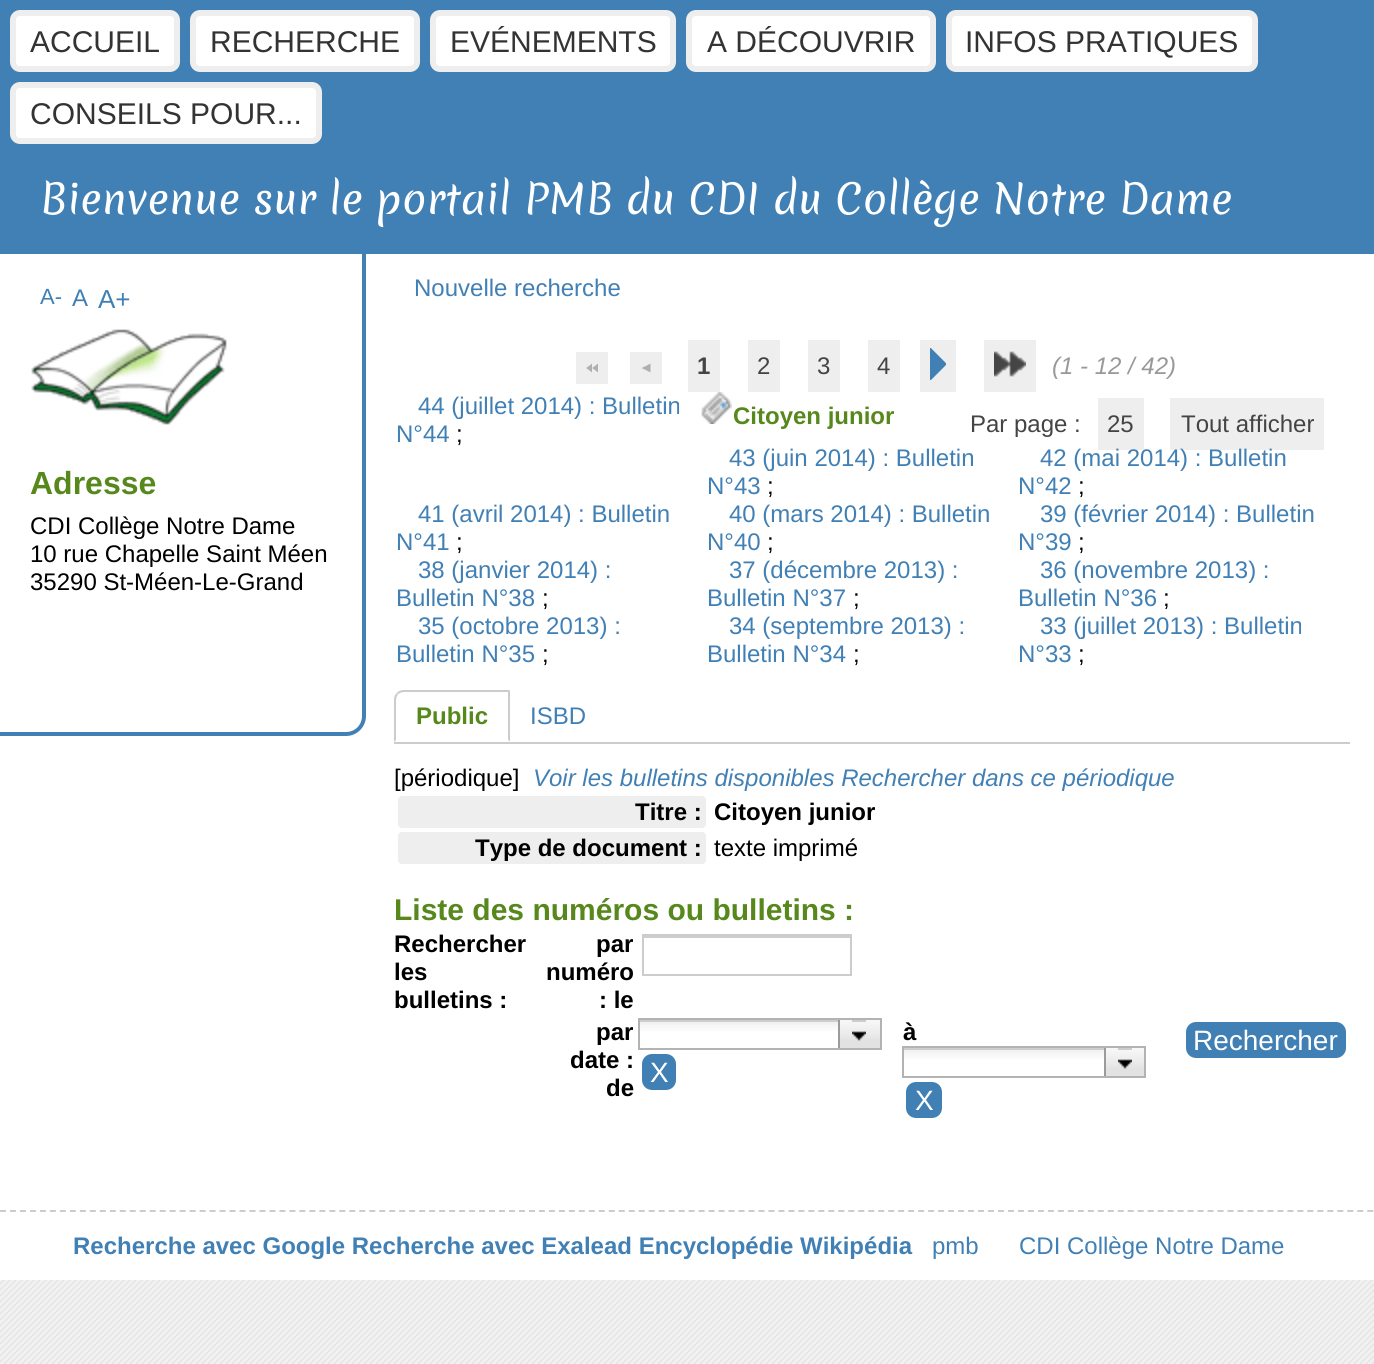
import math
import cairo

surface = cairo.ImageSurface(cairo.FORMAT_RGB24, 1374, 1364)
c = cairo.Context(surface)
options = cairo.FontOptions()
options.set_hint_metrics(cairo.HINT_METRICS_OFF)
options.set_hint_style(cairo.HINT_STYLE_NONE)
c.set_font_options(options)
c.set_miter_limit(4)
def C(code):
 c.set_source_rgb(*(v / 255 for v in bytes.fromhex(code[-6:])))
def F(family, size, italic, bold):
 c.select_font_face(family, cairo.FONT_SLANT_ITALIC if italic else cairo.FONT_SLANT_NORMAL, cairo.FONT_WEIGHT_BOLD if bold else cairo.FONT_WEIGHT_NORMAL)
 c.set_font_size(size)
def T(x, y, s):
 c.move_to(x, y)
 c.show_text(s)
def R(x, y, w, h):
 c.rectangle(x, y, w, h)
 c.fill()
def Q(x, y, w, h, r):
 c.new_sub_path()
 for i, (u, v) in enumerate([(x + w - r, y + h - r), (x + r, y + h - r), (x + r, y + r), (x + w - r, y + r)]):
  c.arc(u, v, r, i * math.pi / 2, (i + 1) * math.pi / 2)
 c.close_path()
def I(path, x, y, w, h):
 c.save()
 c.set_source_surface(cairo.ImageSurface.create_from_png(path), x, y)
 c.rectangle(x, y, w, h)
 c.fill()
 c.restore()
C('ffffff')
c.paint()
I('1.png',0,1280,1374,84)
C('4180b5')
R(0,0,1374,254)
C('ffffff')
Q(433,13,240,56,7)
c.fill_preserve()
C('eeeeee')
c.set_line_width(6)
c.stroke()
F('Liberation Sans',30,0,0)
C('333333')
T(450,52,'EVÉNEMENTS')
C('ffffff')
Q(689,13,244,56,7)
c.fill_preserve()
C('eeeeee')
c.stroke()
C('333333')
T(707,52,'A DÉCOUVRIR')
C('ffffff')
Q(949,13,306,56,7)
c.fill_preserve()
C('eeeeee')
c.stroke()
C('333333')
T(965,52,'INFOS PRATIQUES')
C('ffffff')
Q(13,85,306,56,7)
c.fill_preserve()
C('eeeeee')
c.stroke()
C('333333')
T(30,124,'CONSEILS POUR...')
C('ffffff')
Q(13,13,164,56,7)
c.fill_preserve()
C('eeeeee')
c.stroke()
C('333333')
T(30,52,'ACCUEIL')
C('ffffff')
Q(193,13,224,56,7)
c.fill_preserve()
C('eeeeee')
c.stroke()
C('333333')
T(210,52,'RECHERCHE')
F('Merienda',40,0,0)
C('ffffff')
T(40,214,'Bienvenue sur le portail PMB du CDI du Collège Notre Dame')
C('4180b5')
c.set_fill_rule(cairo.FILL_RULE_EVEN_ODD)
c.new_path()
c.move_to(-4,254)
c.line_to(366,254)
c.line_to(366,716)
c.curve_to(366,727,357,736,346,736)
c.line_to(-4,736)
c.close_path()
c.move_to(0,254)
c.line_to(362,254)
c.line_to(362,716)
c.curve_to(362,725,355,732,346,732)
c.line_to(0,732)
c.close_path()
c.fill()
F('Liberation Sans',22,0,0)
T(40,304,'A-')
F('Liberation Sans',24,0,0)
T(72,306,'A')
F('Liberation Sans',26,0,0)
T(98,308,'A+')
I('2.png',31,329,196,96)
F('Liberation Sans',32,0,1)
C('56881c')
T(30,494,'Adresse')
F('Liberation Sans',24,0,0)
C('000000')
T(30,534,'CDI Collège Notre Dame')
T(30,562,'10 rue Chapelle Saint Méen')
T(30,590,'35290 St-Méen-Le-Grand')
C('4180b5')
T(414,296,'Nouvelle recherche')
C('eeeeee')
R(576,352,32,32)
I('3.png',586,363,12,10)
R(630,352,32,32)
I('4.png',642,363,9,10)
R(688,340,32,52)
F('Liberation Sans',24,0,1)
C('444444')
T(697,374,'1')
C('eeeeee')
R(748,340,32,52)
F('Liberation Sans',24,0,0)
C('444444')
T(757,374,'2')
C('eeeeee')
R(808,340,32,52)
C('444444')
T(817,374,'3')
C('eeeeee')
R(868,340,32,52)
C('444444')
T(877,374,'4')
C('eeeeee')
R(920,340,36,52)
I('5.png',930,348,16,32)
R(984,340,52,52)
I('6.png',994,351,32,26)
F('Liberation Sans',24,1,0)
C('999999')
T(1052,374,'(1 - 12 / 42)')
F('Liberation Sans',24,0,0)
C('444444')
T(970,432,'Par page :')
C('eeeeee')
R(1098,398,46,52)
C('444444')
T(1107,432,'25')
C('eeeeee')
R(1170,398,154,52)
C('444444')
T(1181,432,'Tout afficher')
C('4180b5')
T(418,414,'44 (juillet 2014) : Bulletin')
T(396,442,'N°44')
C('000000')
T(456,442,';')
I('7.png',701,392,31,32)
F('Liberation Sans',24,0,1)
C('56881c')
T(733,424,'Citoyen junior')
C('cccccc')
R(394,742,956,2)
C('56881c')
T(416,724,'Public')
C('cccccc')
c.set_fill_rule(cairo.FILL_RULE_WINDING)
c.new_path()
c.move_to(404,690)
c.curve_to(401,690,398,691,397,693)
c.line_to(398,694)
c.curve_to(400,693,402,692,404,692)
c.line_to(508,692)
c.line_to(510,690)
c.close_path()
c.fill()
c.new_path()
c.move_to(510,690)
c.line_to(508,692)
c.line_to(508,740)
c.line_to(510,742)
c.close_path()
c.fill()
C('ffffff')
c.new_path()
c.move_to(510,742)
c.line_to(508,740)
c.line_to(396,740)
c.line_to(394,742)
c.close_path()
c.fill()
C('cccccc')
c.new_path()
c.move_to(394,742)
c.line_to(396,740)
c.line_to(396,700)
c.curve_to(396,698,397,696,398,694)
c.line_to(397,693)
c.curve_to(395,694,394,697,394,700)
c.close_path()
c.fill()
F('Liberation Sans',24,0,0)
C('4180b5')
T(530,724,'ISBD')
C('000000')
T(394,786,'[périodique]')
F('Liberation Sans',24,1,0)
C('4180b5')
T(533,786,'Voir les bulletins disponibles Rechercher dans ce périodique')
C('eeeeee')
Q(398,796,308,32,4)
c.fill()
F('Liberation Sans',24,0,1)
C('000000')
T(635,820,'Titre :')
T(714,820,'Citoyen junior')
C('eeeeee')
Q(398,832,308,32,4)
c.fill()
C('000000')
T(475,856,'Type de document :')
F('Liberation Sans',24,0,0)
T(714,856,'texte imprimé')
C('4180b5')
T(729,466,'43 (juin 2014) : Bulletin')
T(707,494,'N°43')
C('000000')
T(767,494,';')
C('4180b5')
T(1040,466,'42 (mai 2014) : Bulletin')
T(1018,494,'N°42')
C('000000')
T(1078,494,';')
C('4180b5')
T(418,522,'41 (avril 2014) : Bulletin')
T(396,550,'N°41')
C('000000')
T(456,550,';')
C('4180b5')
T(729,522,'40 (mars 2014) : Bulletin')
T(707,550,'N°40')
C('000000')
T(767,550,';')
C('4180b5')
T(1040,522,'39 (février 2014) : Bulletin')
T(1018,550,'N°39')
C('000000')
T(1078,550,';')
C('4180b5')
T(418,578,'38 (janvier 2014) :')
T(396,606,'Bulletin N°38')
C('000000')
T(542,606,';')
C('4180b5')
T(729,578,'37 (décembre 2013) :')
T(707,606,'Bulletin N°37')
C('000000')
T(853,606,';')
C('4180b5')
T(1040,578,'36 (novembre 2013) :')
T(1018,606,'Bulletin N°36')
C('000000')
T(1163,606,';')
C('4180b5')
T(418,634,'35 (octobre 2013) :')
T(396,662,'Bulletin N°35')
C('000000')
T(542,662,';')
C('4180b5')
T(729,634,'34 (septembre 2013) :')
T(707,662,'Bulletin N°34')
C('000000')
T(853,662,';')
C('4180b5')
T(1040,634,'33 (juillet 2013) : Bulletin')
T(1018,662,'N°33')
C('000000')
T(1078,662,';')
F('Liberation Sans',30,0,1)
C('56881c')
T(394,920,'Liste des numéros ou bulletins :')
F('Liberation Sans',24,0,1)
C('000000')
T(394,952,'Rechercher')
T(394,980,'les')
T(394,1008,'bulletins :')
T(596,952,'par')
T(546,980,'numéro')
T(599,1008,': le')
C('cdcdcd')
R(644,936,206,2)
c.rectangle(643,935,208,40)
C('cccccc')
c.set_line_width(2)
c.stroke()
C('000000')
T(596,1040,'par')
T(570,1068,'date :')
T(606,1096,'de')
T(903,1040,'à')
I('8.png',904,1050,200,9)
c.rectangle(903,1047,242,30)
C('b3b3b3')
c.stroke()
C('cdcdcd')
R(904,1048,200,2)
I('9.png',1106,1048,38,28)
C('9b9b9b')
R(1104,1048,2,28)
I('10.png',1118,1059,14,10)
C('cdcdcd')
R(1118,1048,14,2)
C('4180b5')
Q(907,1083,34,34,9)
c.fill_preserve()
c.stroke()
F('Liberation Sans',28,0,0)
C('ffffff')
T(915,1110,'X')
C('4180b5')
Q(1187,1023,158,34,9)
c.fill_preserve()
c.stroke()
C('ffffff')
T(1193,1050,'Rechercher')
I('11.png',640,1022,198,9)
c.rectangle(639,1019,242,30)
C('b3b3b3')
c.stroke()
C('cdcdcd')
R(640,1020,198,2)
I('12.png',840,1020,40,28)
C('9b9b9b')
R(838,1020,2,28)
I('10.png',852,1031,14,10)
C('cdcdcd')
R(852,1020,14,2)
C('4180b5')
Q(643,1055,32,34,9)
c.fill_preserve()
c.stroke()
C('ffffff')
T(650,1082,'X')
c.new_path()
c.move_to(0,1211)
c.line_to(1374,1211)
C('cccccc')
c.set_dash([6,3.98])
c.stroke()
F('Liberation Sans',24,0,1)
C('4180b5')
T(73,1254,'Recherche avec Google Recherche avec Exalead Encyclopédie Wikipédia')
F('Liberation Sans',24,0,0)
T(932,1254,'pmb')
T(1019,1254,'CDI Collège Notre Dame')
surface.write_to_png('o.png')
